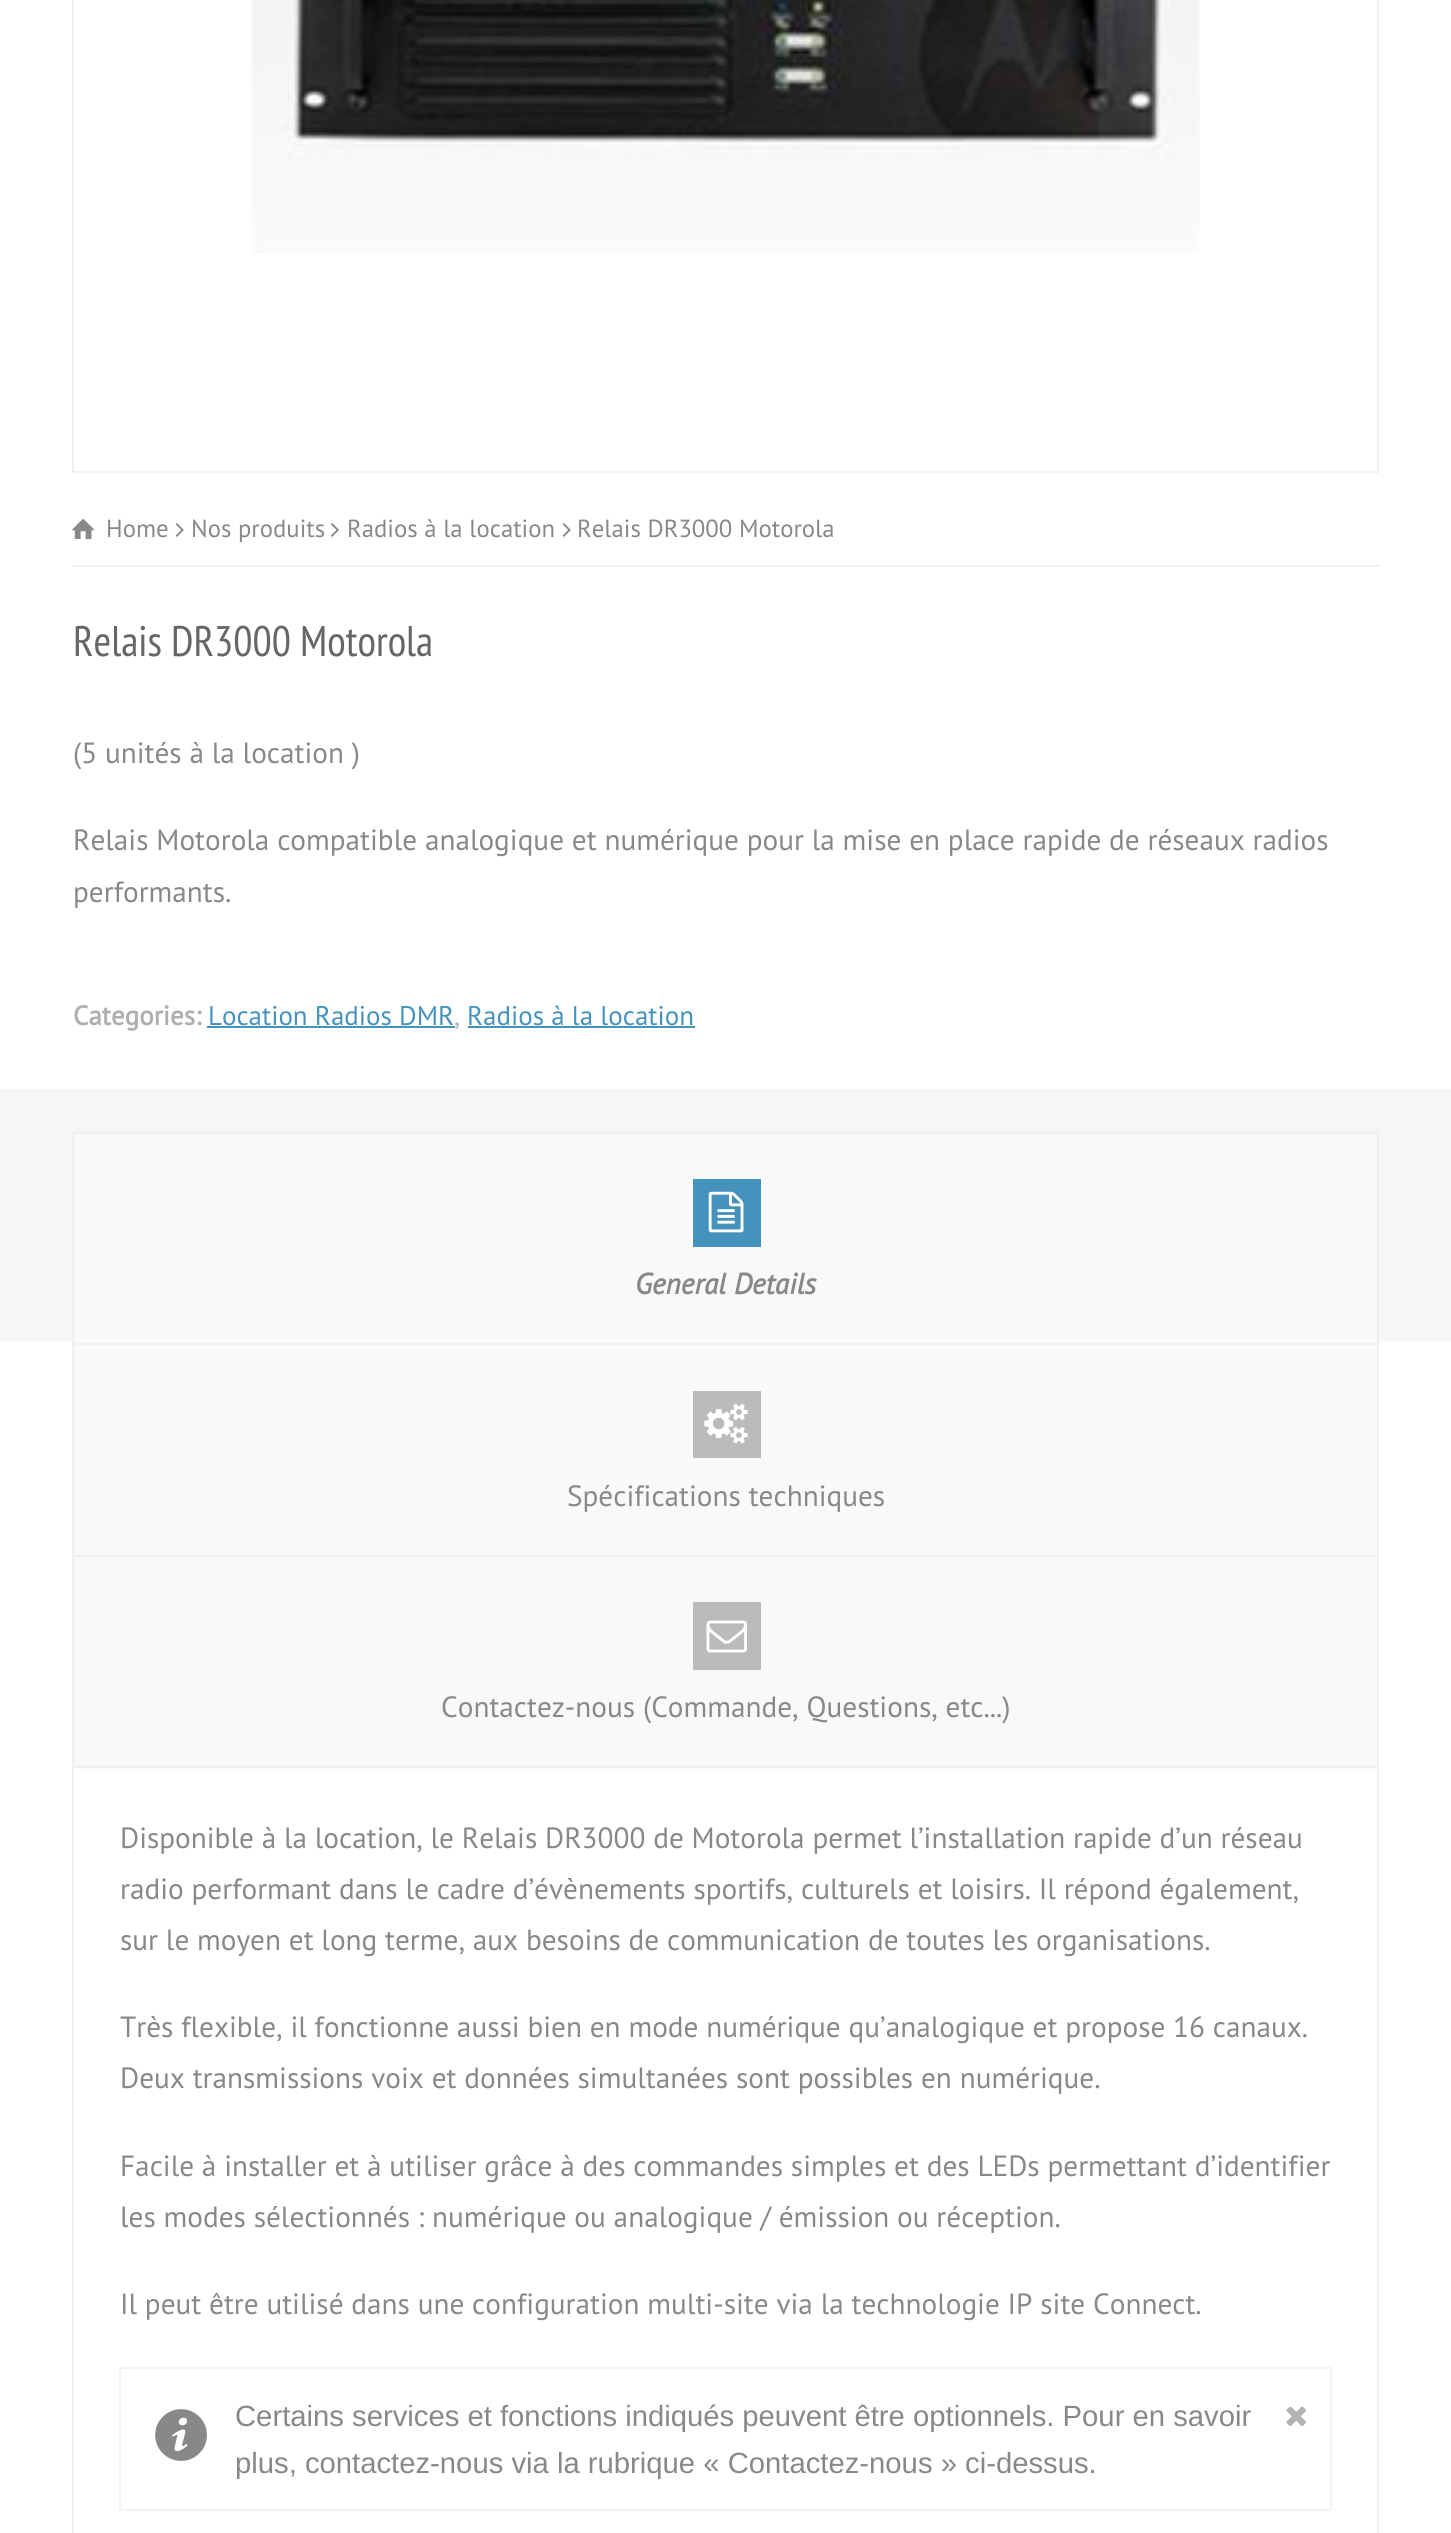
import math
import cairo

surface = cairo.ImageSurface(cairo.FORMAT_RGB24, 1451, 2533)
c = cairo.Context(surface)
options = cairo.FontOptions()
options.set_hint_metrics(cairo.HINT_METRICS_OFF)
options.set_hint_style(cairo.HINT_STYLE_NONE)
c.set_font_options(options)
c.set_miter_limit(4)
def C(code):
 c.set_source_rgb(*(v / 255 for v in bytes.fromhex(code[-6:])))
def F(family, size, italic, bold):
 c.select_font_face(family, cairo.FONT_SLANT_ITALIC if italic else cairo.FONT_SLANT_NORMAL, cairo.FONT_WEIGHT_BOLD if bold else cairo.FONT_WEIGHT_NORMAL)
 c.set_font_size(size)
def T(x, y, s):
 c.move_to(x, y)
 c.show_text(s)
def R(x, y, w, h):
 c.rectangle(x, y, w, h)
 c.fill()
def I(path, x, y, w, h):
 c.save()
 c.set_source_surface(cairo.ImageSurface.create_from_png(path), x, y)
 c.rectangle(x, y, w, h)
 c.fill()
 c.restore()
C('ffffff')
c.paint()
c.rectangle(73,-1,1305,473)
C('f0f0f0')
c.stroke()
I('1.png',251,0,949,254)
R(72,565,1307,2)
I('2.png',72,519,23,21)
F('PT Sans',24.75,0,0)
C('888888')
T(106,537,'Home')
I('3.png',175,523,9,14)
T(191,537,'Nos produits')
I('4.png',331,523,8,14)
T(347,537,'Radios à la location')
I('3.png',562,523,9,14)
T(577,537,'Relais DR3000 Motorola')
F('PT Sans Narrow',42.75,0,0)
C('666666')
T(73,656,'Relais DR3000 Motorola')
F('PT Sans',29.25,0,0)
C('888888')
T(73,763,'(5 unités à la location )')
T(73,850,'Relais Motorola compatible analogique et numérique pour la mise en place rapide de réseaux radios')
T(73,902,'performants.')
F('PT Sans',27,0,1)
C('afafaf')
T(73,1025,'Categories:')
F('PT Sans',27,0,0)
C('4593bc')
T(208,1025,'Location Radios DMR')
C('afafaf')
T(454,1025,',')
C('4593bc')
R(207,1026,248,2)
R(468,1026,227,2)
T(467,1025,'Radios à la location')
C('f6f6f6')
R(0,1089,1451,252)
c.rectangle(73,1133,1305,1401)
C('f0f0f0')
c.stroke()
C('f9f9f9')
R(74,1134,1303,635)
C('f0f0f0')
R(74,1343,1303,2)
C('4593bc')
R(693,1179,68,68)
I('5.png',708,1191,36,42)
F('PT Sans',29.25,1,1)
C('888888')
T(635,1294,'General Details')
C('f0f0f0')
R(74,1555,1303,2)
C('bbbbbb')
R(693,1391,68,67)
I('6.png',704,1403,44,41)
F('PT Sans',29.25,0,0)
C('888888')
T(567,1506,'Spécifications techniques')
C('f0f0f0')
R(74,1766,1303,2)
C('bbbbbb')
R(693,1602,68,68)
I('7.png',706,1620,41,33)
C('888888')
T(441,1717,'Contactez-nous (Commande, Questions, etc...)')
T(120,1848,'Disponible à la location, le Relais DR3000 de Motorola permet l’installation rapide d’un réseau')
T(120,1899,'radio performant dans le cadre d’évènements sportifs, culturels et loisirs. Il répond également,')
T(120,1950,'sur le moyen et long terme, aux besoins de communication de toutes les organisations.')
T(120,2037,'Très flexible, il fonctionne aussi bien en mode numérique qu’analogique et propose 16 canaux.')
T(120,2088,'Deux transmissions voix et données simultanées sont possibles en numérique.')
T(120,2176,'Facile à installer et à utiliser grâce à des commandes simples et des LEDs permettant d’identifier')
T(120,2227,'les modes sélectionnés : numérique ou analogique / émission ou réception.')
T(120,2314,'Il peut être utilisé dans une configuration multi-site via la technologie IP site Connect.')
c.rectangle(120,2368,1211,142)
C('f3f3f3')
c.stroke()
I('8.png',155,2409,52,52)
F('Liberation Sans',29.25,0,0)
C('888888')
T(235,2426,'Certains services et fonctions indiqués peuvent être optionnels. Pour en savoir')
T(235,2473,'plus, contactez-nous via la rubrique « Contactez-nous » ci-dessus.')
I('9.png',1286,2406,20,20)
surface.write_to_png('o.png')
